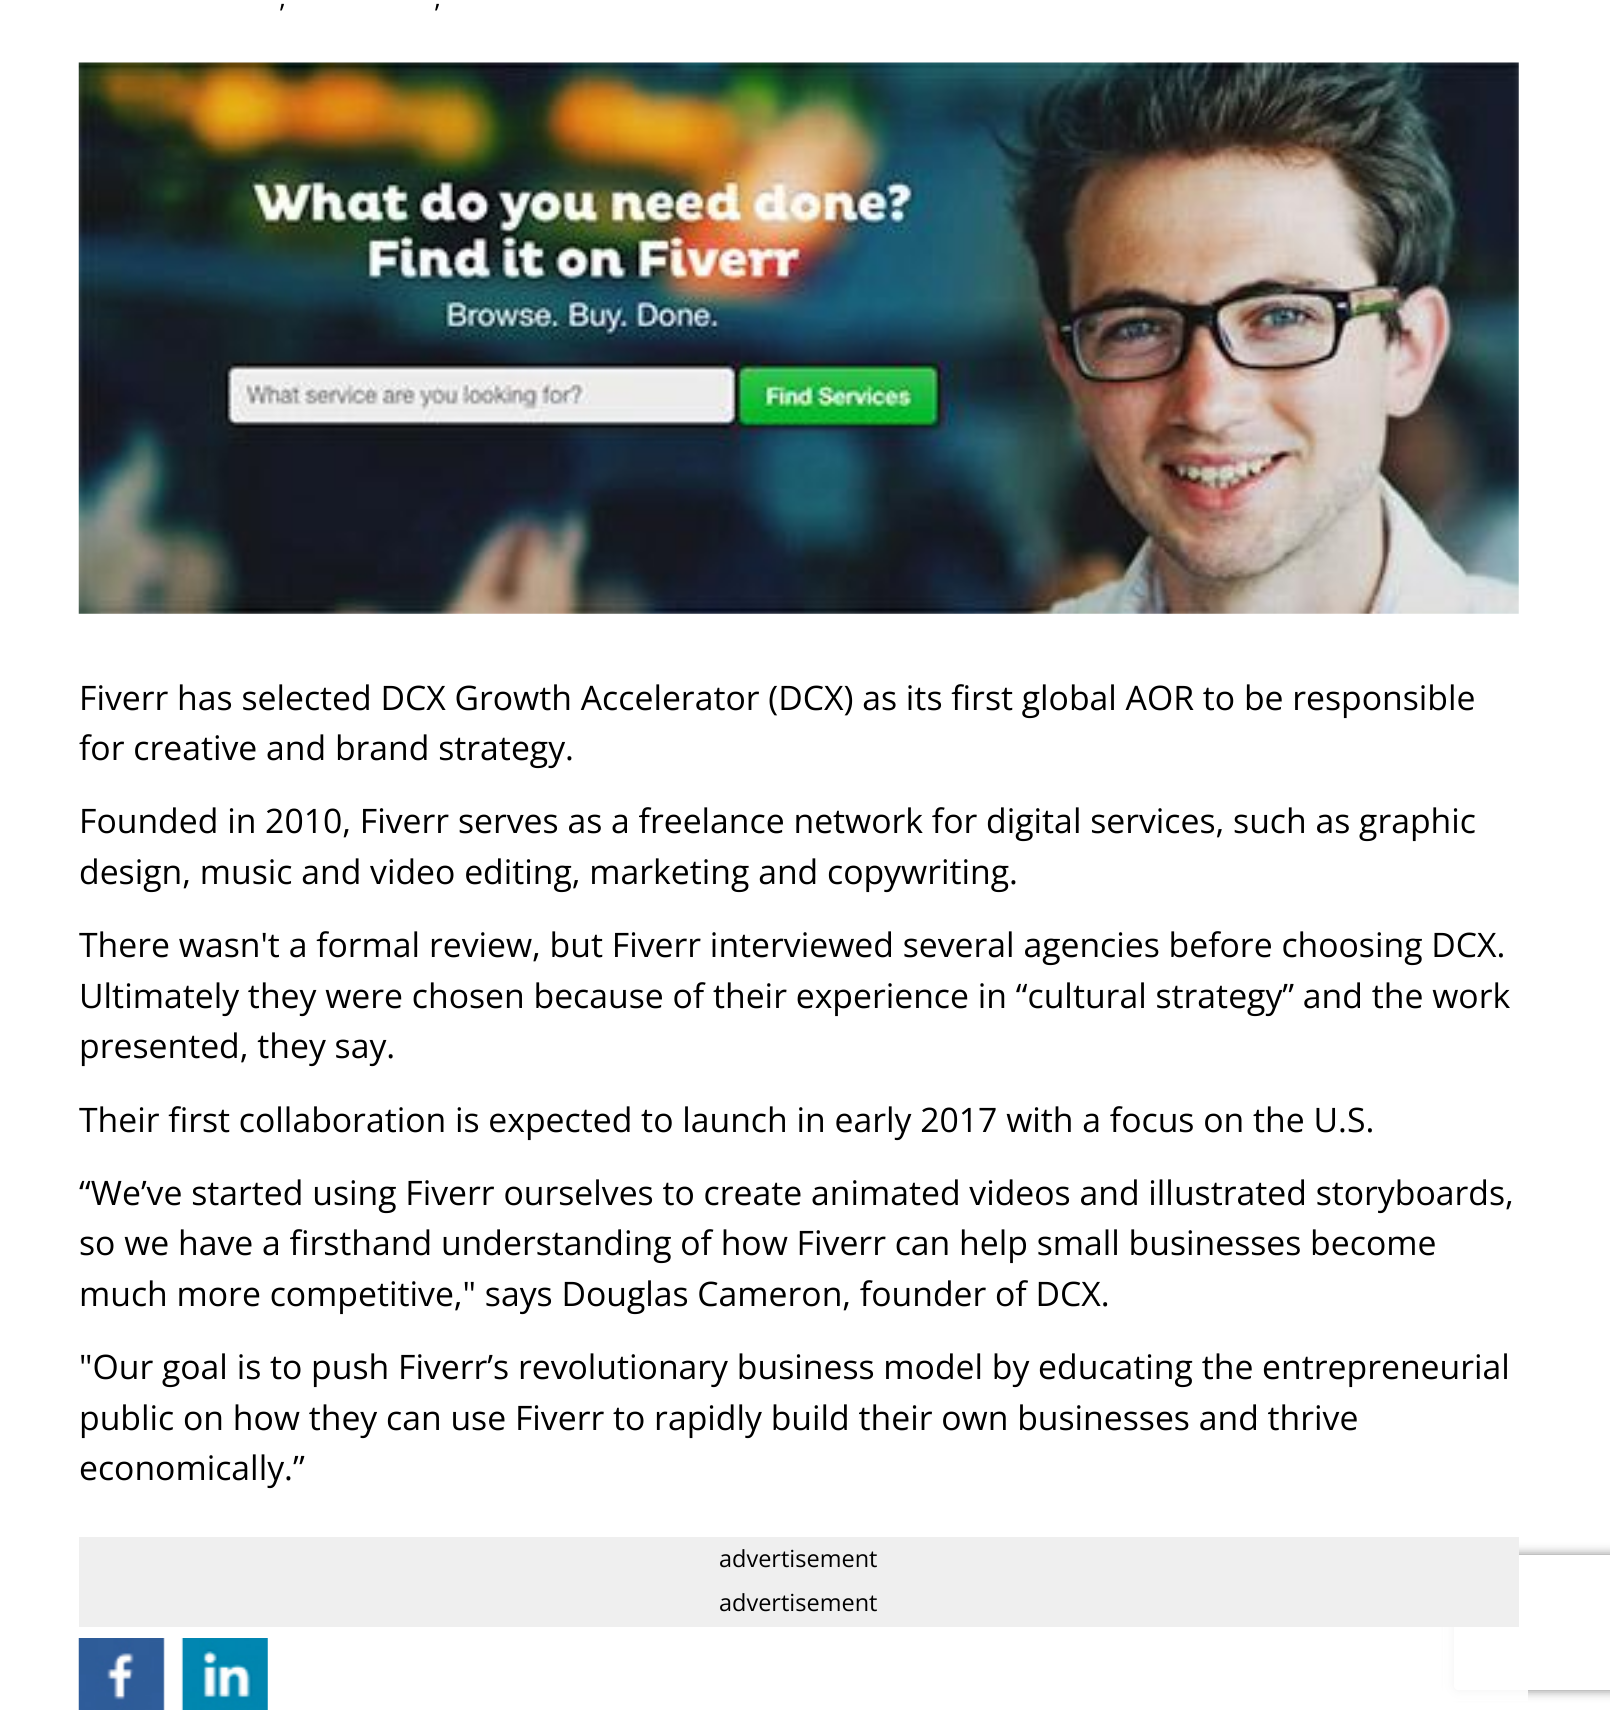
import math
import cairo

surface = cairo.ImageSurface(cairo.FORMAT_RGB24, 1610, 1721)
c = cairo.Context(surface)
options = cairo.FontOptions()
options.set_hint_metrics(cairo.HINT_METRICS_OFF)
options.set_hint_style(cairo.HINT_STYLE_NONE)
c.set_font_options(options)
c.set_miter_limit(4)
def C(code):
 c.set_source_rgb(*(v / 255 for v in bytes.fromhex(code[-6:])))
def F(family, size, italic, bold):
 c.select_font_face(family, cairo.FONT_SLANT_ITALIC if italic else cairo.FONT_SLANT_NORMAL, cairo.FONT_WEIGHT_BOLD if bold else cairo.FONT_WEIGHT_NORMAL)
 c.set_font_size(size)
def T(x, y, s):
 c.move_to(x, y)
 c.show_text(s)
def R(x, y, w, h):
 c.rectangle(x, y, w, h)
 c.fill()
def Q(x, y, w, h, r):
 c.new_sub_path()
 for i, (u, v) in enumerate([(x + w - r, y + h - r), (x + r, y + h - r), (x + r, y + r), (x + w - r, y + r)]):
  c.arc(u, v, r, i * math.pi / 2, (i + 1) * math.pi / 2)
 c.close_path()
def S(x, y, w, h, r, blur, alpha):
 c.push_group_with_content(cairo.CONTENT_ALPHA)
 c.set_operator(cairo.OPERATOR_SOURCE)
 for i in range(15, -16, -2):
  e = blur * i / 6
  if min(w, h) + 2 * e > 0:
   c.set_source_rgba(0, 0, 0, alpha * math.erfc((i - 1) / 8.5) / 2)
   Q(x - e, y - e, w + 2 * e, h + 2 * e, max(0, min(r + e + blur * .6, min(w, h) / 2 + e)))
   c.fill()
 c.mask(c.pop_group())
def I(path, x, y, w, h):
 c.save()
 c.set_source_surface(cairo.ImageSurface.create_from_png(path), x, y)
 c.rectangle(x, y, w, h)
 c.fill()
 c.restore()
C('ffffff')
c.paint()
F('Open Sans',27,0,0)
C('000000')
T(279,7,',')
T(434,7,',')
I('1.png',78,62,1441,552)
F('Open Sans',33.75,0,0)
T(79,710,'Fiverr has selected DCX Growth Accelerator (DCX) as its first global AOR to be responsible')
T(79,760,'for creative and brand strategy.')
T(79,833,'Founded in 2010, Fiverr serves as a freelance network for digital services, such as graphic')
T(79,884,'design, music and video editing, marketing and copywriting.')
T(79,957,'There wasn\'t a formal review, but Fiverr interviewed several agencies before choosing DCX.')
T(79,1008,'Ultimately they were chosen because of their experience in “cultural strategy” and the work')
T(79,1058,'presented, they say.')
T(79,1132,'Their first collaboration is expected to launch in early 2017 with a focus on the U.S.')
T(79,1205,'“We’ve started using Fiverr ourselves to create animated videos and illustrated storyboards,')
T(79,1255,'so we have a firsthand understanding of how Fiverr can help small businesses become')
T(79,1306,'much more competitive," says Douglas Cameron, founder of DCX.')
T(79,1379,'"Our goal is to push Fiverr’s revolutionary business model by educating the entrepreneurial')
T(79,1430,'public on how they can use Fiverr to rapidly build their own businesses and thrive')
T(79,1480,'economically.”')
c.save()
c.set_fill_rule(cairo.FILL_RULE_EVEN_ODD)
c.new_path()
c.move_to(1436,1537)
c.line_to(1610,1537)
c.line_to(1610,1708)
c.line_to(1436,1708)
c.close_path()
c.move_to(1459,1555)
c.line_to(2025,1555)
c.curve_to(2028,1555,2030,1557,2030,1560)
c.line_to(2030,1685)
c.curve_to(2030,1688,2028,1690,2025,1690)
c.line_to(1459,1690)
c.curve_to(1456,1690,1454,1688,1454,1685)
c.line_to(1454,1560)
c.curve_to(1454,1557,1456,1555,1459,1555)
c.close_path()
c.clip()
C('808080')
S(1454,1555,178,135,5,5.5,1)
c.restore()
C('efefef')
R(79,1537,1440,90)
F('Open Sans',23.5,0,0)
C('000000')
T(719,1567,'advertisement')
T(719,1611,'advertisement')
c.set_source_rgba(1,1,1,0.9)
R(1443,1627,85,74)
I('2.png',78,1638,87,72)
I('3.png',181,1638,87,72)
surface.write_to_png('o.png')
